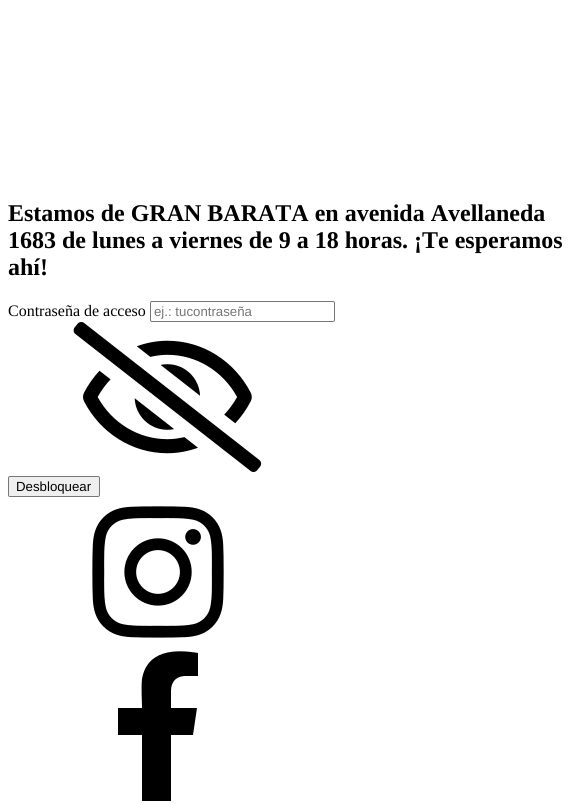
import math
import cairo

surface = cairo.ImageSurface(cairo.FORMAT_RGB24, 586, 804)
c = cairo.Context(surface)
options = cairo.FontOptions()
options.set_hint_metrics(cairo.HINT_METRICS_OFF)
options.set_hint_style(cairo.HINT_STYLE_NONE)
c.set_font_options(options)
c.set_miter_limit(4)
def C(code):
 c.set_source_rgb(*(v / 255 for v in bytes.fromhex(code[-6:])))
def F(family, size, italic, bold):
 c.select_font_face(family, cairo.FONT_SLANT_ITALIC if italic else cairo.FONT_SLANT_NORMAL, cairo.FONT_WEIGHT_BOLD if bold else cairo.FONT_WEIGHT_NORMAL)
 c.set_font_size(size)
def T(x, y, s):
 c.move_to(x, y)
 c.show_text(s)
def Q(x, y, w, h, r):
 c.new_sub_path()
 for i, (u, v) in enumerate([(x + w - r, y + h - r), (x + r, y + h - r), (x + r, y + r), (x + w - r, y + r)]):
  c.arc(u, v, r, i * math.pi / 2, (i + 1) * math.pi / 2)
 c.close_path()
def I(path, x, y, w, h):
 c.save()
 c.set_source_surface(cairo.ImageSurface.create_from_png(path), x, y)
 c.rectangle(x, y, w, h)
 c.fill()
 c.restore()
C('ffffff')
c.paint()
F('Liberation Serif',24,0,1)
C('000000')
T(8,221,'Estamos de GRAN BARATA en avenida Avellaneda')
T(8,248,'1683 de lunes a viernes de 9 a 18 horas. ¡Te esperamos')
T(8,275,'ahí!')
F('Liberation Serif',16,0,0)
T(8,316,'Contraseña de acceso')
Q(150.5,301.5,184,20,1.5)
C('767676')
c.set_line_width(1)
c.stroke()
F('Liberation Sans',13.25,0,0)
C('757575')
T(154,316,'ej.: tucontraseña')
I('1.png',73,322,189,150)
C('efefef')
Q(8.5,476.5,91,20,1.5)
c.fill_preserve()
C('767676')
c.stroke()
C('000000')
T(16,491,'Desbloquear')
I('2.png',92,506,132,132)
c.new_path()
c.move_to(193,735)
c.line_to(197,708)
c.line_to(171,708)
c.line_to(171,691)
c.curve_to(171,683,175,676,186,676)
c.line_to(198,676)
c.line_to(198,653)
c.curve_to(175,649,147,650,142,679)
c.curve_to(141,689,142,699,142,708)
c.line_to(118,708)
c.line_to(118,735)
c.line_to(142,735)
c.line_to(142,801)
c.line_to(171,801)
c.line_to(171,735)
c.close_path()
c.fill()
surface.write_to_png('o.png')
